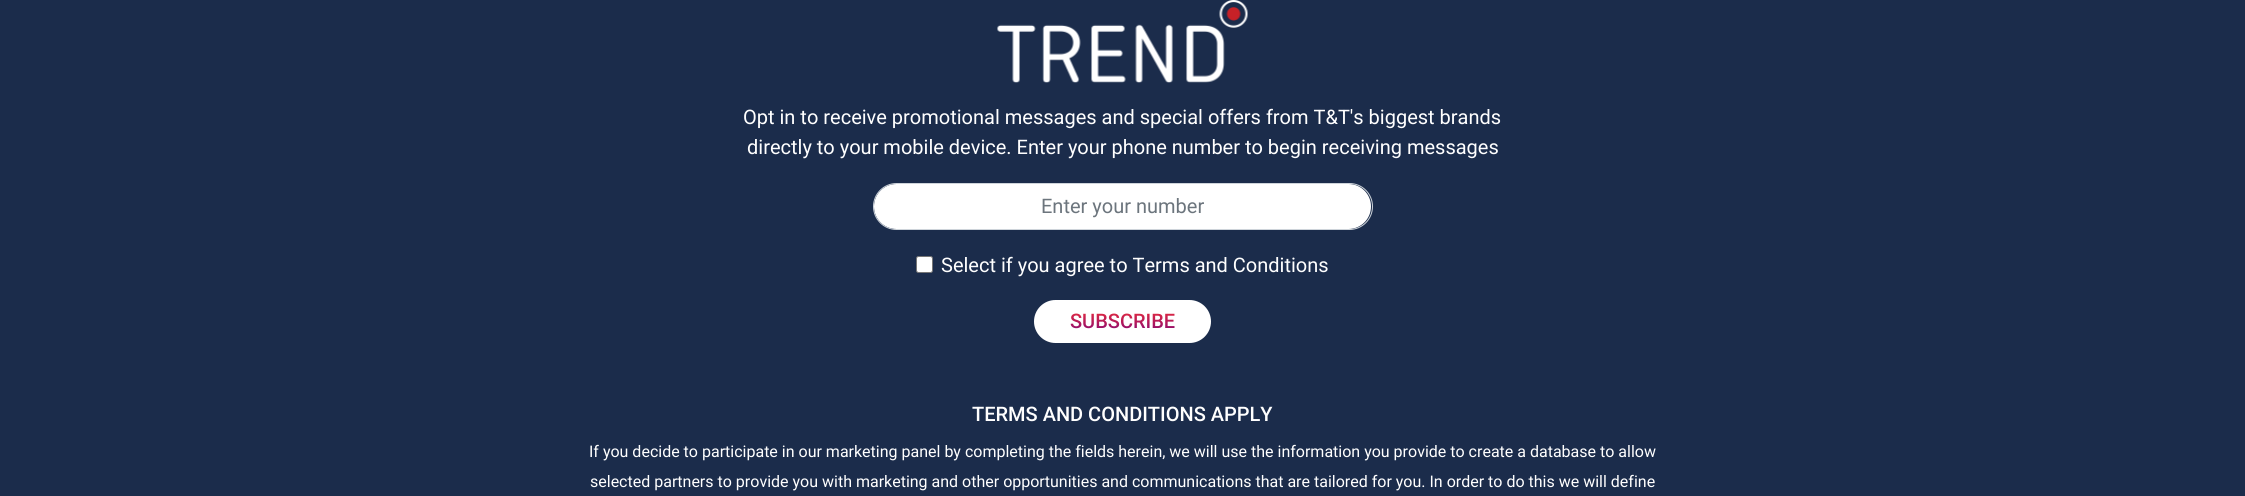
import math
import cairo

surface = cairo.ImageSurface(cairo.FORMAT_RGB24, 2245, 496)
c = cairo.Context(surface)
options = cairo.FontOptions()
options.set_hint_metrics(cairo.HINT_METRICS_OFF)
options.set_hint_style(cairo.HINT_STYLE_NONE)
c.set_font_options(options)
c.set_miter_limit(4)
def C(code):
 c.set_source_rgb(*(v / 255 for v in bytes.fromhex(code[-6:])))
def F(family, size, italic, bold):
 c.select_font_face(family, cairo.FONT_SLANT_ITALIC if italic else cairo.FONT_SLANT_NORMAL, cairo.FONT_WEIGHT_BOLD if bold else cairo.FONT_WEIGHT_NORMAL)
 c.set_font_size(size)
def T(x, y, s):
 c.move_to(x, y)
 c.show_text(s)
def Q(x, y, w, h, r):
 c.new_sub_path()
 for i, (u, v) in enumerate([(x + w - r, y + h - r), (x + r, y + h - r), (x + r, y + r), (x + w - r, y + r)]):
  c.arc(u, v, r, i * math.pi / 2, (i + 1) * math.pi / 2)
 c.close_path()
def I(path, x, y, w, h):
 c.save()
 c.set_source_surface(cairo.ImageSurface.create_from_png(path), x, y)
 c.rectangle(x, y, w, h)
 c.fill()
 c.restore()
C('1b2c4b')
c.paint()
I('1.png',997,0,251,83)
F('Roboto',20,0,0)
C('ffffff')
T(743,124,'Opt in to receive promotional messages and special offers from T&T\'s biggest brands')
T(747,154,'directly to your mobile device. Enter your phone number to begin receiving messages')
Q(874,184,497,45,22.5)
c.fill()
Q(873.5,183.5,499,46,23)
C('ced4da')
c.set_line_width(1)
c.stroke()
C('6c757d')
T(1041,213,'Enter your number')
C('ffffff')
Q(916.5,256.5,16,16,2)
c.fill_preserve()
C('767676')
c.stroke()
C('ffffff')
T(941,272,'Select if you agree to Terms and Conditions')
Q(1034,300,177,43,21.5)
c.fill()
F('Roboto Medium',20,0,0)
gradient = cairo.LinearGradient(1122,309,1122,333)
gradient.add_color_stop_rgba(0,0.929,0.176,0.227,1)
gradient.add_color_stop_rgba(1,0.518,0.035,0.459,1)
c.set_source(gradient)
T(1070,328,'SUBSCRIBE')
C('ffffff')
T(972,421,'TERMS AND CONDITIONS APPLY')
F('Roboto',16,0,0)
T(589,457,'If you decide to participate in our marketing panel by completing the fields herein, we will use the information you provide to create a database to allow')
T(590,487,'selected partners to provide you with marketing and other opportunities and communications that are tailored for you. In order to do this we will define')
surface.write_to_png('o.png')
